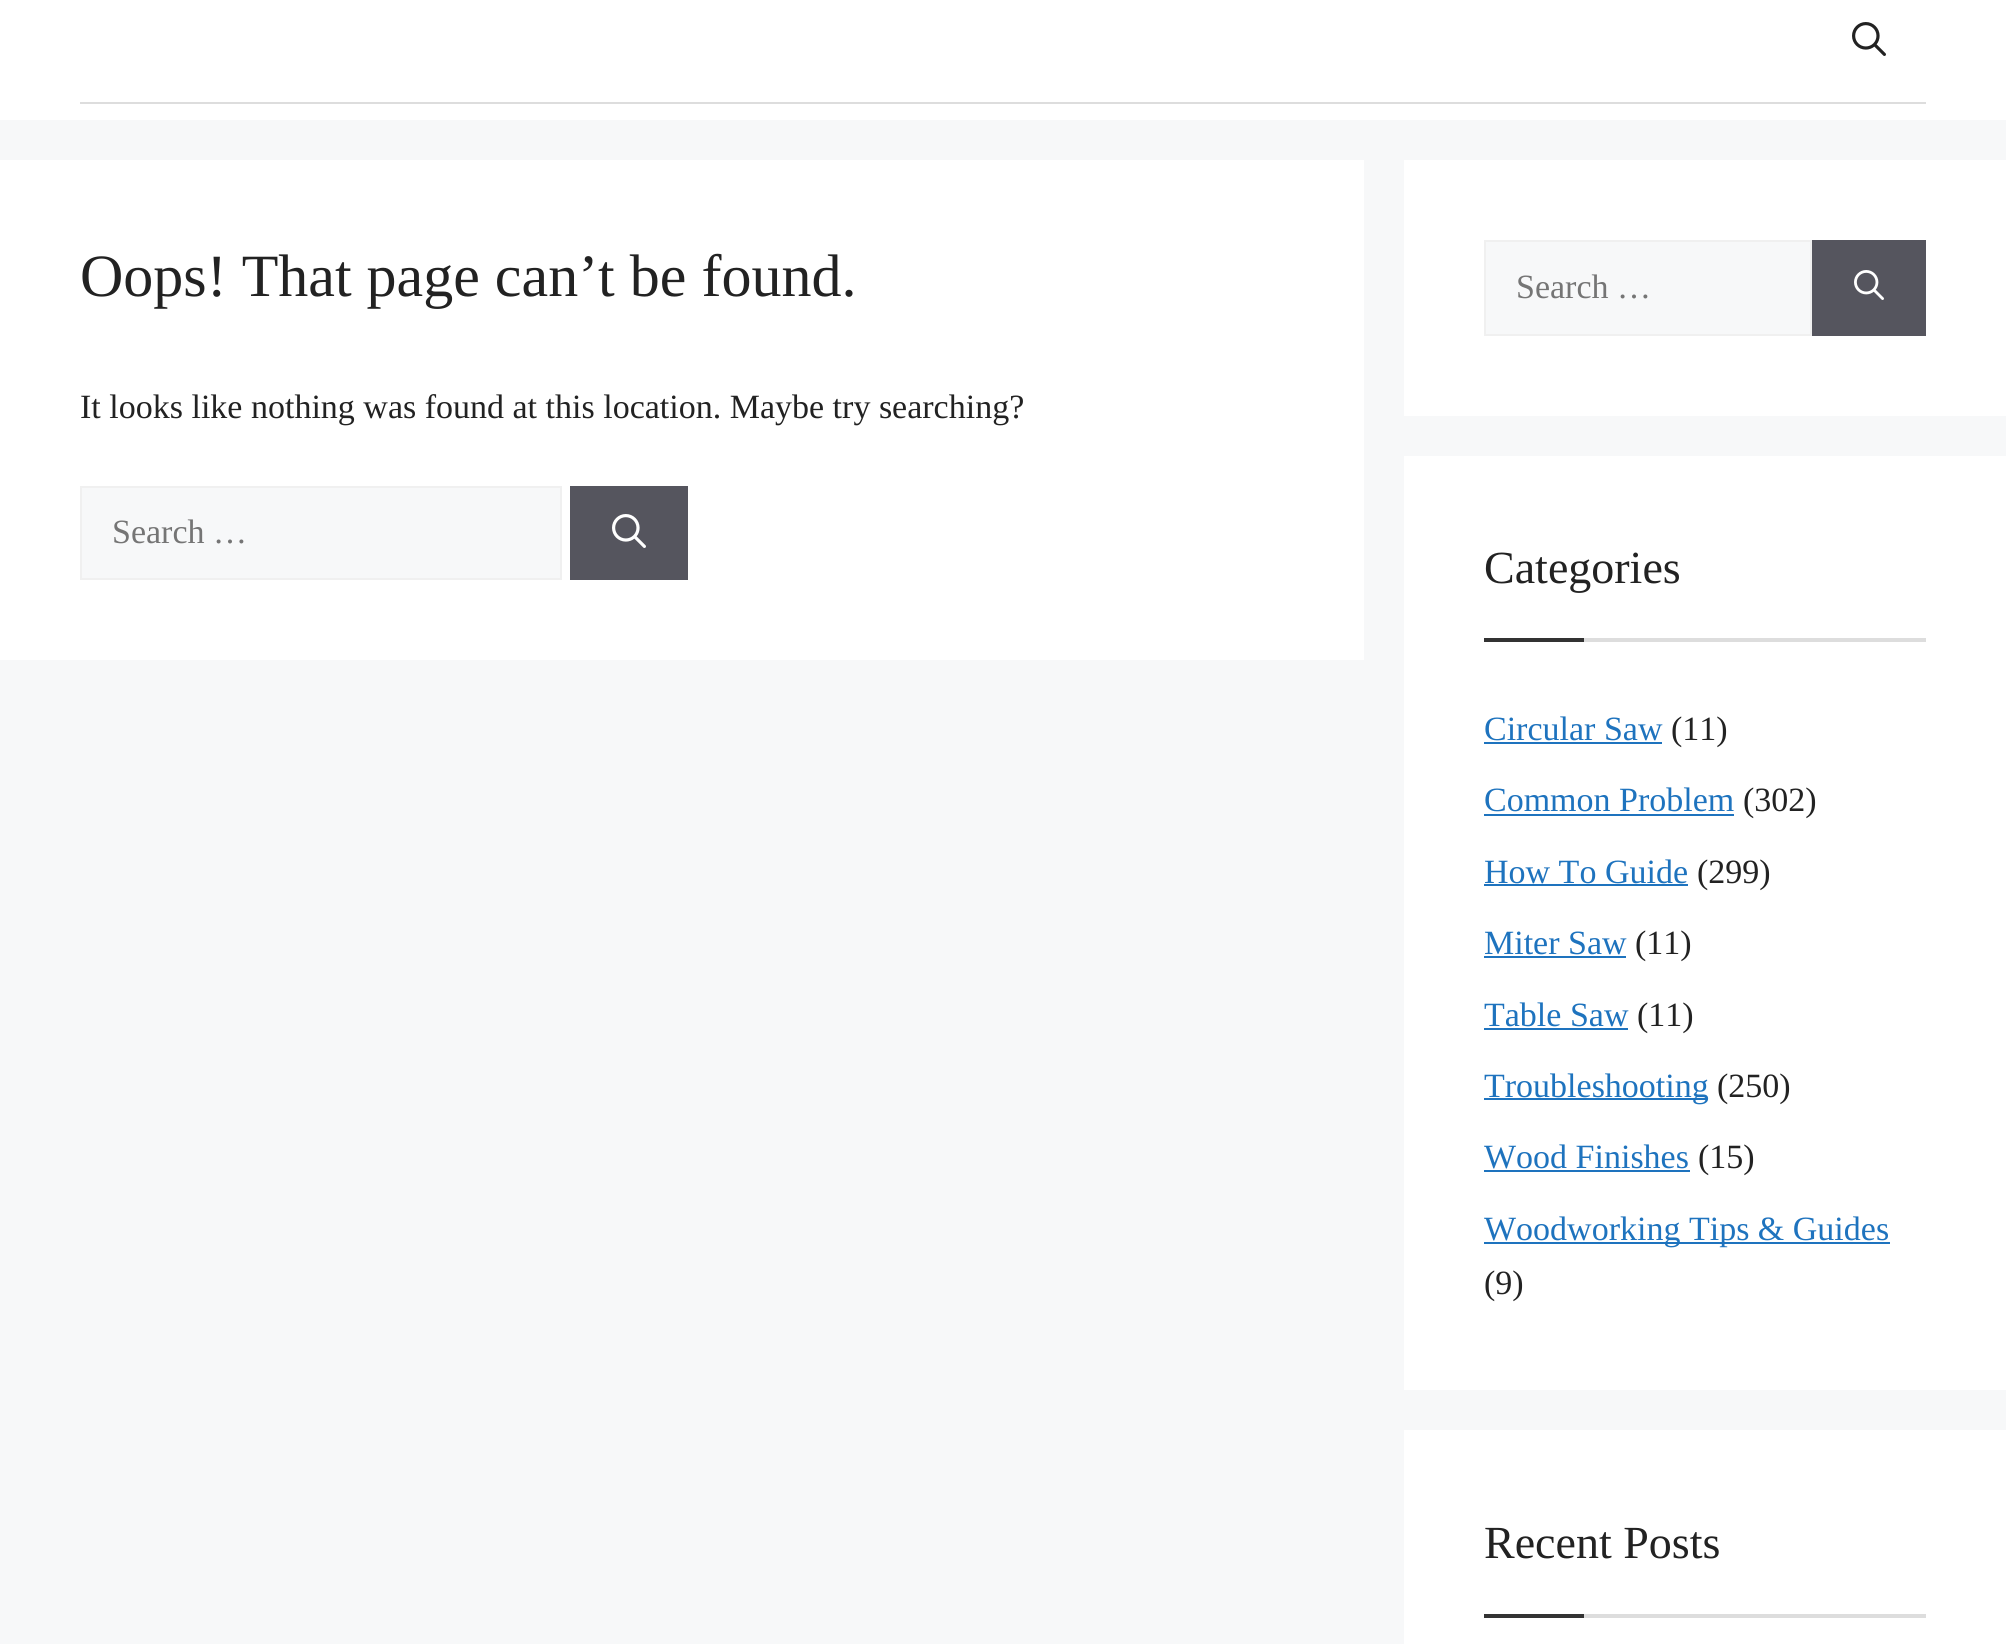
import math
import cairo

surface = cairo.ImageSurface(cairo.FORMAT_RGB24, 2006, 1644)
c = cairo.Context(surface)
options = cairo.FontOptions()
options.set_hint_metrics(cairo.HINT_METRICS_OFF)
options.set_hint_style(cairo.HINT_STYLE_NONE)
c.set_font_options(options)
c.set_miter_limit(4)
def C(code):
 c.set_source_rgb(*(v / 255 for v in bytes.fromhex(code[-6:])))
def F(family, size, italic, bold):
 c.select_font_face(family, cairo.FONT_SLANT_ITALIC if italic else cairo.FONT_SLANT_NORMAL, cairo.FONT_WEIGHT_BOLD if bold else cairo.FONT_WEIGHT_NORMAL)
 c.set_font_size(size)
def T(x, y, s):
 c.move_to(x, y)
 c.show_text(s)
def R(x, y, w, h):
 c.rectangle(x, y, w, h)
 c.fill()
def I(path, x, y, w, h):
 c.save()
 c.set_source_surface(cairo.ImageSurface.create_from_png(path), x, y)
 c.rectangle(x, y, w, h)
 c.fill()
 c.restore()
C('f7f8f9')
c.paint()
C('ffffff')
R(0,0,2006,120)
C('dddddd')
R(80,102,1846,2)
I('1.png',1852,22,34,34)
C('ffffff')
R(0,160,1364,500)
F('Liberation Serif',60,0,0)
C('222222')
T(80,296,'Oops! That page can’t be found.')
F('Liberation Serif',34,0,0)
T(80,418,'It looks like nothing was found at this location. Maybe try searching?')
C('f7f8f9')
c.rectangle(81,487,480,92)
c.fill_preserve()
C('f0f0f0')
c.stroke()
C('757575')
T(112,543,'Search …')
C('55555e')
R(570,486,118,94)
I('2.png',612,514,34,34)
C('ffffff')
R(1404,160,602,256)
C('f7f8f9')
c.rectangle(1485,241,326,94)
c.fill_preserve()
C('f0f0f0')
c.stroke()
C('757575')
T(1516,298,'Search …')
C('55555e')
R(1812,240,114,96)
I('3.png',1854,270,30,30)
C('ffffff')
R(1404,456,602,934)
C('dddddd')
R(1584,638,342,4)
F('Liberation Serif',46,0,0)
C('222222')
T(1484,583,'Categories')
C('333333')
R(1484,638,100,4)
F('Liberation Serif',34,0,0)
C('1e73be')
T(1484,740,'Circular Saw')
R(1484,742,178,2)
C('222222')
T(1671,740,'(11)')
C('1e73be')
T(1484,811,'Common Problem')
R(1484,814,250,2)
C('222222')
T(1743,811,'(302)')
C('1e73be')
T(1484,883,'How To Guide')
R(1484,884,204,2)
C('222222')
T(1697,883,'(299)')
C('1e73be')
T(1484,954,'Miter Saw')
R(1484,956,142,2)
C('222222')
T(1635,954,'(11)')
C('1e73be')
T(1484,1026,'Table Saw')
R(1484,1028,144,2)
C('222222')
T(1637,1026,'(11)')
C('1e73be')
R(1484,1098,224,2)
T(1484,1097,'Troubleshooting')
C('222222')
T(1717,1097,'(250)')
C('1e73be')
T(1484,1168,'Wood Finishes')
R(1484,1170,206,2)
C('222222')
T(1698,1168,'(15)')
C('1e73be')
R(1484,1242,406,2)
T(1484,1240,'Woodworking Tips & Guides')
C('222222')
T(1484,1294,'(9)')
C('ffffff')
R(1404,1430,602,214)
C('dddddd')
R(1584,1614,342,4)
F('Liberation Serif',46,0,0)
C('222222')
T(1484,1558,'Recent Posts')
C('333333')
R(1484,1614,100,4)
surface.write_to_png('o.png')
